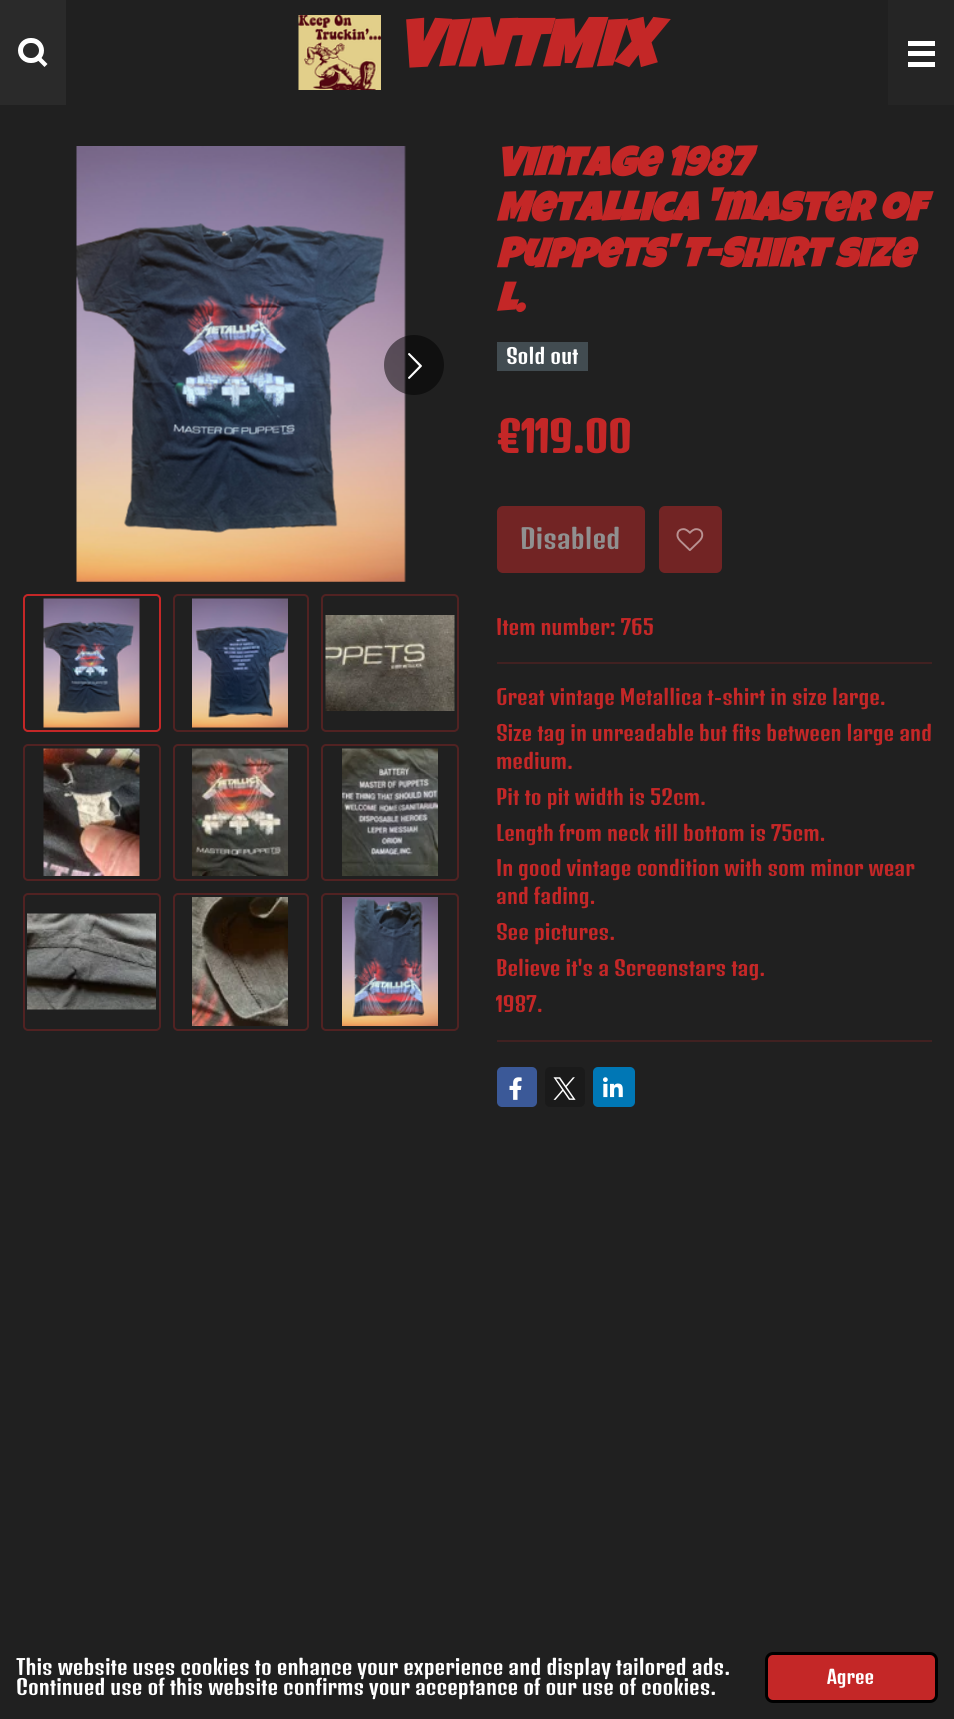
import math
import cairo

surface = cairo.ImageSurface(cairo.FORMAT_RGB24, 954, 1719)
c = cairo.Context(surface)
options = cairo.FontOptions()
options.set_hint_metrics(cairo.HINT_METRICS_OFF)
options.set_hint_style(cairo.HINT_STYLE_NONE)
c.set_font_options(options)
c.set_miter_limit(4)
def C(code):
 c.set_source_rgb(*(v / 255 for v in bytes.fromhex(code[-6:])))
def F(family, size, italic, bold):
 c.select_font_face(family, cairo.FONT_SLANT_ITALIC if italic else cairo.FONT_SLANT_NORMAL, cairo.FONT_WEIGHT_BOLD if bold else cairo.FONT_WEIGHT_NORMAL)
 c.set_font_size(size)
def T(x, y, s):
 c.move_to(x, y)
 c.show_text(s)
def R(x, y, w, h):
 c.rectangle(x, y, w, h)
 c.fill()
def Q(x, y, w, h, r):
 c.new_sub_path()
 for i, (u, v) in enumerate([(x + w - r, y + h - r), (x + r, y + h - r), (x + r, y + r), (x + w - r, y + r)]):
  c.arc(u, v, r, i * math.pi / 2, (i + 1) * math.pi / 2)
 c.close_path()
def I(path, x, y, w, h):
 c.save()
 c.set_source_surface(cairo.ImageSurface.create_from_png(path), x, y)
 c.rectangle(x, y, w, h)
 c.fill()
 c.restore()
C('202020')
c.paint()
C('2a2a2a')
R(0,0,66,105)
Q(20.5,40.5,21,20,10)
C('ffffff')
c.set_line_width(5)
c.stroke()
c.new_path()
c.move_to(38,54.5)
c.line_to(47.5,64)
c.line_to(44.5,67)
c.line_to(35,57.5)
c.close_path()
c.fill()
I('1.png',298,15,83,75)
F('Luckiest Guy',67.5,1,1)
C('c42727')
T(396,67,'VINTMIX')
C('252525')
R(888,0,66,105)
C('ffffff')
R(908,51,27,5)
R(908,41,27,5)
R(908,62,27,5)
I('2.png',76,146,330,436)
c.set_source_rgba(0,0,0,0.5)
c.arc(414,365,30,0,2 * math.pi)
c.fill()
I('3.png',408,353,14,26)
Q(24,595,136,136,4)
C('c42727')
c.set_line_width(2)
c.stroke()
I('4.png',43,598,97,130)
Q(174,595,134,136,4)
C('512222')
c.stroke()
I('5.png',192,598,96,130)
Q(322,595,136,136,4)
c.stroke()
I('6.png',325,615,130,96)
Q(24,745,136,135,4)
c.stroke()
I('7.png',43,748,97,128)
Q(174,745,134,135,4)
c.stroke()
I('8.png',192,748,96,128)
Q(322,745,136,135,4)
c.stroke()
I('9.png',342,748,96,128)
Q(24,894,136,136,4)
c.stroke()
I('10.png',27,913,129,97)
Q(174,894,134,136,4)
c.stroke()
I('11.png',192,897,96,129)
Q(322,894,136,136,4)
c.stroke()
I('12.png',342,897,96,129)
F('Luckiest Guy',41.25,1,1)
C('c42727')
T(496,176,'Vintage 1987')
T(496,221,'Metallica \'master of')
T(496,267,'Puppets\' T-Shirt size')
T(496,312,'L.')
C('424c51')
R(497,342,91,29)
F('Denk One',20.55,0,0)
C('ffffff')
T(506,364,'Sold out')
F('Denk One',41,0,1)
C('c42727')
T(496,453,'€119.00')
C('722424')
Q(497,506,148,67,6)
c.fill()
F('Denk One',26.5,0,0)
C('909090')
T(520,549,'Disabled')
C('722424')
Q(659,506,63,67,6)
c.fill()
I('13.png',676,528,28,23)
F('Denk One',20.55,0,0)
C('c42727')
T(496,635,'Item number: 765')
C('412121')
R(497,662,435,2)
C('c42727')
T(496,705,'Great vintage Metallica t-shirt in size large.')
T(496,741,'Size tag in unreadable but fits between large and')
T(496,769,'medium.')
T(496,805,'Pit to pit width is 52cm.')
T(496,841,'Length from neck till bottom is 75cm.')
T(496,876,'In good vintage condition with som minor wear')
T(496,904,'and fading.')
T(496,940,'See pictures.')
T(496,976,'Believe it\'s a Screenstars tag.')
T(496,1012,'1987.')
C('412121')
R(497,1040,435,2)
C('3b5998')
Q(497,1067,40,40,5)
c.fill()
I('14.png',509,1077,13,23)
C('1a1a1a')
Q(545,1067,40,40,5)
c.fill()
I('15.png',553,1077,23,23)
C('0077b5')
Q(593,1067,42,40,5)
c.fill()
I('16.png',603,1077,20,21)
C('ffffff')
T(16,1675,'This website uses cookies to enhance your experience and display tailored ads.')
T(16,1695,'Continued use of this website confirms your acceptance of our use of cookies.')
C('c42727')
Q(766.5,1653.5,170,48,6.5)
c.fill_preserve()
C('000000')
c.set_line_width(3)
c.stroke()
F('Denk One',18.5,0,0)
C('ffffff')
T(827,1684,'Agree')
surface.write_to_png('o.png')
